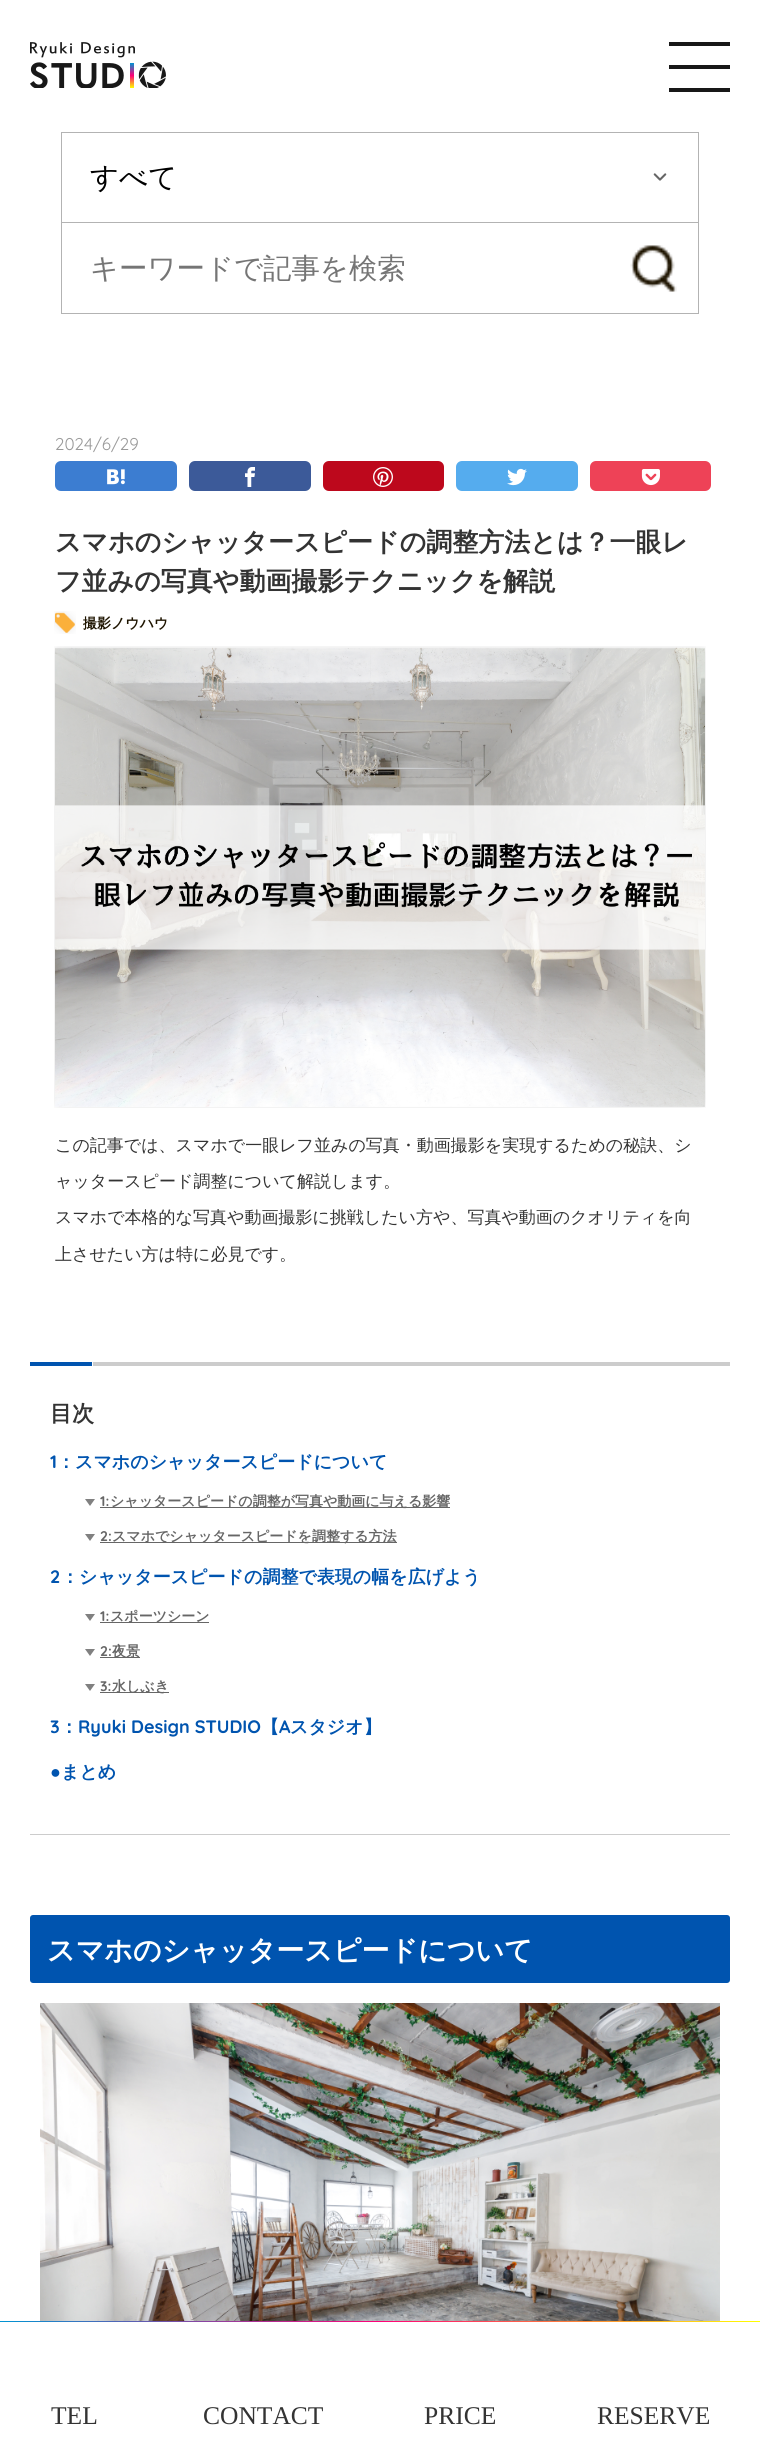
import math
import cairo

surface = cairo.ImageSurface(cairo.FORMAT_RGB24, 760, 2444)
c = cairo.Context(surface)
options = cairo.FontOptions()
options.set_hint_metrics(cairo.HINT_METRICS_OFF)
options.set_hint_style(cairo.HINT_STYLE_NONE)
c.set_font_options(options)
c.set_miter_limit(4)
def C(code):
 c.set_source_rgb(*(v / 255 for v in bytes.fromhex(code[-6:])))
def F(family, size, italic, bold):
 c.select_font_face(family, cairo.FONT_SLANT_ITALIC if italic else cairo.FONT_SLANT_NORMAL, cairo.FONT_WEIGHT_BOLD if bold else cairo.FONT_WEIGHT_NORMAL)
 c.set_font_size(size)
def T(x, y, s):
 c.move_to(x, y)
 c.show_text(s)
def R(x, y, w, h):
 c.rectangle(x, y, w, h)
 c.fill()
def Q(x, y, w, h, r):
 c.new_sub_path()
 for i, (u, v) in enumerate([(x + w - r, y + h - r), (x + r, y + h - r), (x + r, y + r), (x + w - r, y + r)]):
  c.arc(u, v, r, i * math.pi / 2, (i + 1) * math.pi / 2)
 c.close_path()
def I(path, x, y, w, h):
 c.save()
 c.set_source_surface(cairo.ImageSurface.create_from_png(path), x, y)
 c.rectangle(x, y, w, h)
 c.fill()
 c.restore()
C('ffffff')
c.paint()
I('1.png',30,42,136,46)
C('181818')
R(669,42,61,4)
R(669,65,61,4)
R(669,88,61,4)
I('2.png',653,173,14,8)
c.rectangle(61.5,132.5,637,90)
C('b3b3b3')
c.set_line_width(1)
c.stroke()
F('WenQuanYi Zen Hei Medium',28.4,0,0)
C('000000')
T(90,187,'すべて')
C('b3b3b3')
R(698,223,1,91)
R(61,313,638,1)
R(61,223,1,91)
C('757575')
T(90,278,'キーワードで記事を検索')
I('3.png',630,245,47,47)
F('Quicksand',17,0,0)
C('999999')
T(55,450,'2024/6/29')
C('3c7dd1')
Q(55,461,122,30,6)
c.fill()
I('4.png',107,469,18,16)
C('3c5a99')
Q(189,461,122,30,6)
c.fill()
I('5.png',245,467,10,20)
C('bd081c')
Q(323,461,121,30,6)
c.fill()
I('6.png',373,467,20,20)
C('55acee')
Q(456,461,122,30,6)
c.fill()
I('7.png',507,468,20,18)
C('ee4257')
Q(590,461,121,30,6)
c.fill()
I('8.png',641,469,19,17)
F('WenQuanYi Zen Hei',26,0,1)
C('333333')
T(55,551,'スマホのシャッタースピードの調整方法とは？一眼レ')
T(55,590,'フ並みの写真や動画撮影テクニックを解説')
I('9.png',54,611,22,23)
F('WenQuanYi Zen Hei',14,0,1)
C('1e1400')
T(83,628,'撮影ノウハウ')
I('10.png',54,646,652,462)
F('WenQuanYi Zen Hei Medium',17,0,0)
C('333333')
T(55,1151,'この記事では、スマホで一眼レフ並みの写真・動画撮影を実現するための秘訣、シ')
T(55,1187,'ャッタースピード調整について解説します。')
T(55,1223,'スマホで本格的な写真や動画撮影に挑戦したい方や、写真や動画のクオリティを向')
T(55,1260,'上させたい方は特に必見です。')
C('cccccc')
R(30,1834,700,1)
C('0054af')
R(30,1362,62,4)
C('cccccc')
R(93,1362,637,4)
F('WenQuanYi Zen Hei',22,0,1)
C('333333')
T(50,1421,'目次')
F('Quicksand',18,0,1)
C('0054af')
T(50,1468,'1')
F('WenQuanYi Zen Hei',18,0,1)
T(57,1468,'：スマホのシャッタースピードについて')
C('808080')
c.new_path()
c.move_to(85,1499)
c.line_to(95,1499)
c.line_to(90,1506)
c.close_path()
c.fill()
F('Quicksand',14,0,1)
C('666666')
T(100,1506,'1:')
R(100,1507,350,1)
F('WenQuanYi Zen Hei',14,0,1)
T(110,1506,'シャッタースピードの調整が写真や動画に与える影響')
C('808080')
c.new_path()
c.move_to(85,1534)
c.line_to(95,1534)
c.line_to(90,1541)
c.close_path()
c.fill()
F('Quicksand',14,0,1)
C('666666')
T(100,1541,'2:')
R(100,1542,297,1)
F('WenQuanYi Zen Hei',14,0,1)
T(112,1541,'スマホでシャッタースピードを調整する方法')
F('Quicksand',18,0,1)
C('0054af')
T(50,1583,'2')
F('WenQuanYi Zen Hei',18,0,1)
T(61,1583,'：シャッタースピードの調整で表現の幅を広げよう')
C('808080')
c.new_path()
c.move_to(85,1614)
c.line_to(95,1614)
c.line_to(90,1621)
c.close_path()
c.fill()
F('Quicksand',14,0,1)
C('666666')
T(100,1621,'1:')
R(100,1622,109,1)
F('WenQuanYi Zen Hei',14,0,1)
T(110,1621,'スポーツシーン')
C('808080')
c.new_path()
c.move_to(85,1649)
c.line_to(95,1649)
c.line_to(90,1656)
c.close_path()
c.fill()
F('Quicksand',14,0,1)
C('666666')
T(100,1656,'2:')
R(100,1657,40,1)
F('WenQuanYi Zen Hei',14,0,1)
T(112,1656,'夜景')
C('808080')
c.new_path()
c.move_to(85,1684)
c.line_to(95,1684)
c.line_to(90,1691)
c.close_path()
c.fill()
F('Quicksand',14,0,1)
C('666666')
T(100,1691,'3:')
R(100,1692,69,1)
F('WenQuanYi Zen Hei',14,0,1)
T(112,1691,'水しぶき')
F('Quicksand',18,0,1)
C('0054af')
T(50,1733,'3')
F('WenQuanYi Zen Hei',18,0,1)
T(60,1733,'：')
F('Quicksand',18,0,1)
T(78,1733,'Ryuki Design STUDIO')
F('WenQuanYi Zen Hei',18,0,1)
T(261,1733,'【')
F('Quicksand',18,0,1)
T(279,1733,'A')
F('WenQuanYi Zen Hei',18,0,1)
T(290,1733,'スタジオ】')
F('Liberation Sans',18,0,1)
T(50,1778,'●')
F('WenQuanYi Zen Hei',18,0,1)
T(61,1778,'まとめ')
Q(30,1915,700,68,3)
c.fill()
F('WenQuanYi Zen Hei',28,0,1)
C('ffffff')
T(47,1960,'スマホのシャッタースピードについて')
I('11.png',40,2003,680,318)
gradient = cairo.LinearGradient(760,2322,0,2322)
gradient.add_color_stop_rgba(0,1,1,0,1)
gradient.add_color_stop_rgba(.5,1,0,0.471,1)
gradient.add_color_stop_rgba(1,0,0.58,0.827,1)
c.set_source(gradient)
R(0,2321,760,1)
F('Liberation Serif',25.5,0,0)
C('333333')
T(51,2424,'TEL')
T(203,2424,'CONTACT')
T(424,2424,'PRICE')
T(597,2424,'RESERVE')
surface.write_to_png('o.png')
